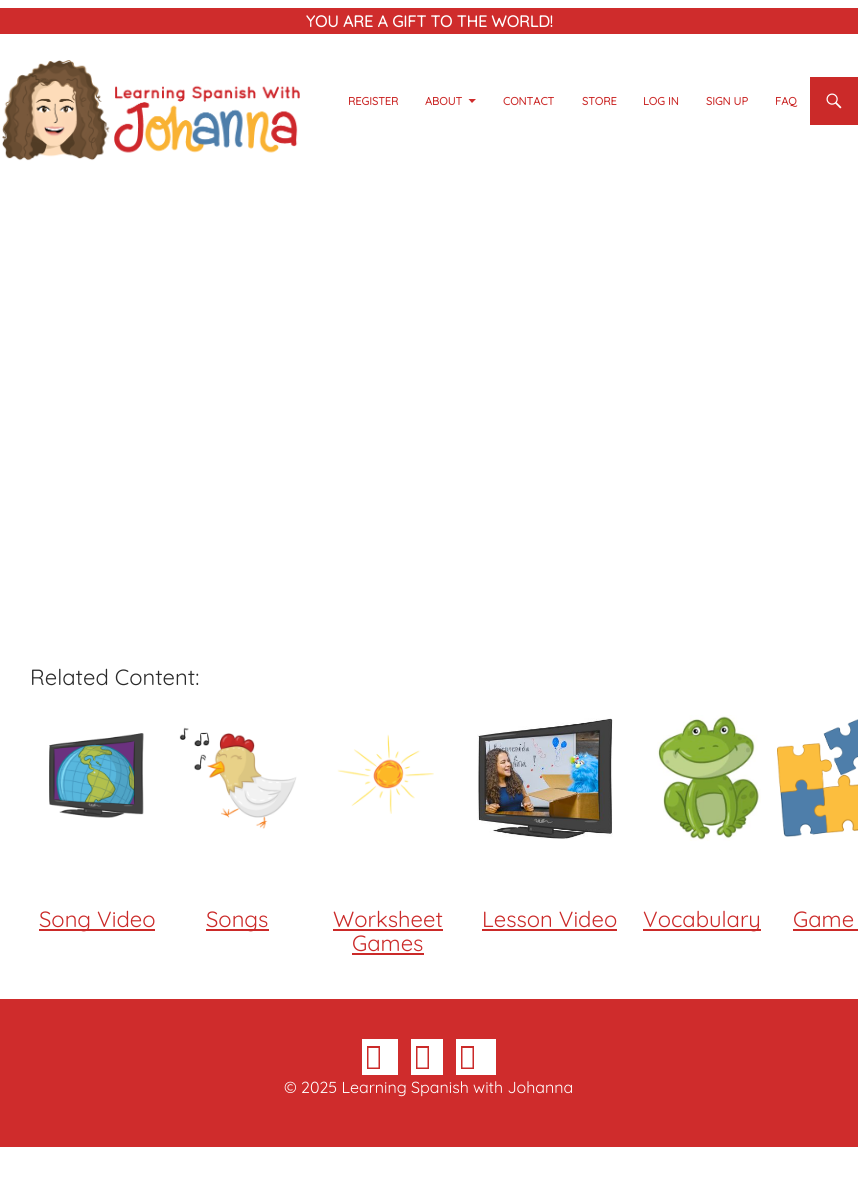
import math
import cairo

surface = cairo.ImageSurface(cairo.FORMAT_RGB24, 858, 1204)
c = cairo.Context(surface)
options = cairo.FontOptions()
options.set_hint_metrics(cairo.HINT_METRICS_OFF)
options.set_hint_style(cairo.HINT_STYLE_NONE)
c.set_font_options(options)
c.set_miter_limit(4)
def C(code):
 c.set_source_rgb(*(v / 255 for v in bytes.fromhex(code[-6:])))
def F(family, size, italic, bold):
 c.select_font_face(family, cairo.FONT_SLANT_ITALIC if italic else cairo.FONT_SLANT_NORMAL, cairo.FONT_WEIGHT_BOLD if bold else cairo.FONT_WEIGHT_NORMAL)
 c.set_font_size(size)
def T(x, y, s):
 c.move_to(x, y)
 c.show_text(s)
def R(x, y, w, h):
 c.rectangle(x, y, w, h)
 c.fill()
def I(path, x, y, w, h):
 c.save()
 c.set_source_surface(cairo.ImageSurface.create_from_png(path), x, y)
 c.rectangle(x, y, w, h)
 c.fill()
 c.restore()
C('ffffff')
c.paint()
C('cf2c2c')
R(0,8,858,26)
F('Quicksand',16,0,1)
C('ffffff')
T(306,27,'YOU ARE A GIFT TO THE WORLD!')
I('1.png',2,60,298,101)
F('Quicksand',11,0,1)
C('cb2a29')
T(348,105,'REGISTER')
T(425,105,'ABOUT')
C('cf2c2c')
c.new_path()
c.move_to(468.5,99)
c.line_to(472,103)
c.line_to(476,99)
c.close_path()
c.fill()
C('cb2a29')
T(503,105,'CONTACT')
T(582,105,'STORE')
T(643,105,'LOG IN')
T(706,105,'SIGN UP')
T(775,105,'FAQ')
R(810,77,48,48)
I('2.png',826,93,16,16)
F('Quicksand Light',22,0,0)
C('2b2b2b')
T(30,685,'Related Content:')
I('3.png',49,733,95,85)
I('4.png',179,727,118,102)
I('5.png',337,734,97,80)
I('6.png',477,718,136,121)
I('7.png',657,715,104,126)
I('8.png',777,719,81,118)
C('cb2a29')
R(39,929,116,2)
T(39,927,'Song Video')
R(206,929,63,2)
T(206,927,'Songs')
T(333,927,'Worksheet')
R(333,929,110,2)
T(352,951,'Games')
R(352,953,72,2)
T(482,927,'Lesson Video')
R(482,929,135,2)
R(643,929,118,2)
T(643,927,'Vocabulary')
T(793,927,'Game')
R(793,929,65,2)
C('cf2c2c')
R(0,999,858,148)
C('ffffff')
R(362,1039,36,36)
C('cb2a29')
c.new_path()
c.move_to(367,1069)
c.line_to(367,1046)
c.line_to(380,1046)
c.line_to(380,1069)
c.close_path()
c.move_to(368.5,1067.5)
c.line_to(378.5,1067.5)
c.line_to(378.5,1048)
c.line_to(368.5,1048)
c.close_path()
c.fill()
C('ffffff')
R(411,1039,32,36)
C('cb2a29')
c.new_path()
c.move_to(416,1069)
c.line_to(416,1046)
c.line_to(429,1046)
c.line_to(429,1069)
c.close_path()
c.move_to(417.5,1067.5)
c.line_to(427.5,1067.5)
c.line_to(427.5,1048)
c.line_to(417.5,1048)
c.close_path()
c.fill()
C('ffffff')
R(456,1039,40,36)
C('cb2a29')
c.new_path()
c.move_to(461,1069)
c.line_to(461,1046)
c.line_to(474,1046)
c.line_to(474,1069)
c.close_path()
c.move_to(462.5,1067.5)
c.line_to(472.5,1067.5)
c.line_to(472.5,1048)
c.line_to(462.5,1048)
c.close_path()
c.fill()
F('Quicksand Light',16,0,0)
C('ffffff')
T(284,1093,'© 2025 Learning Spanish with Johanna')
surface.write_to_png('o.png')
